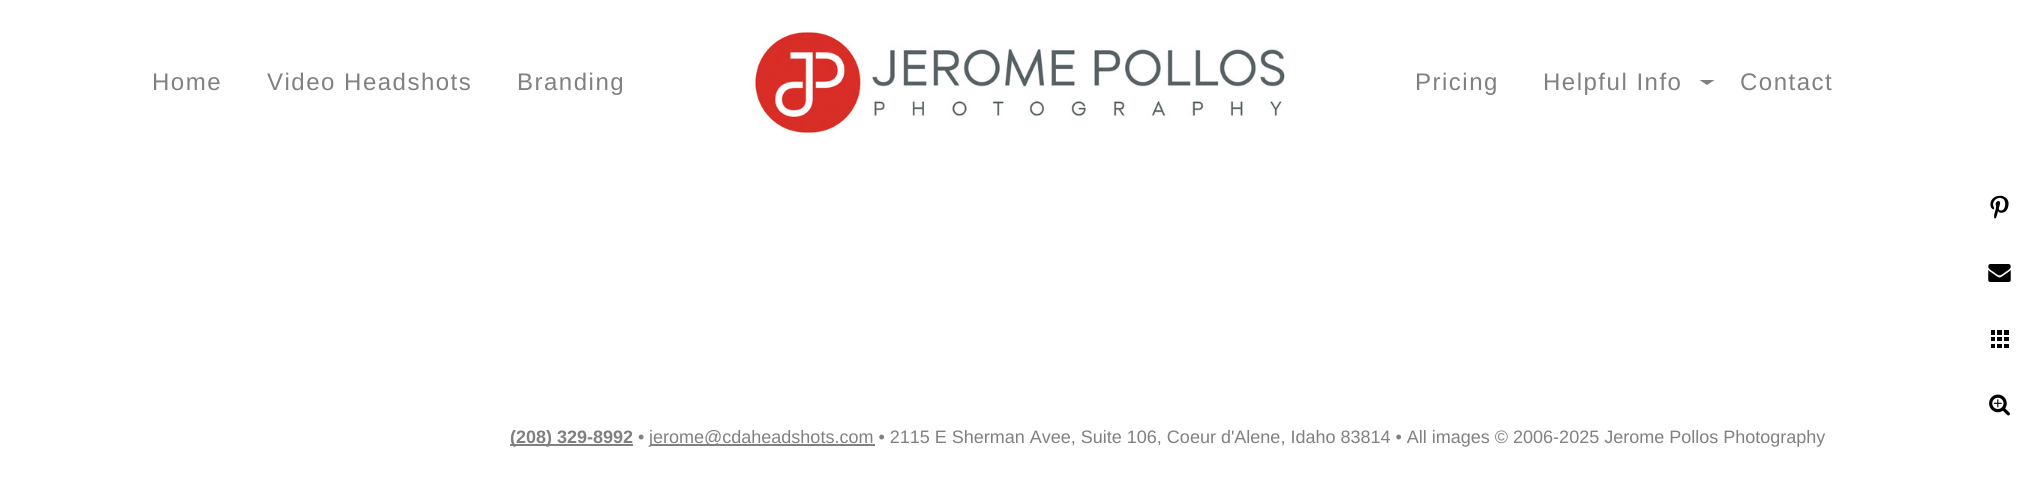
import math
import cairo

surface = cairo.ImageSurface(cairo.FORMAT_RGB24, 2040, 477)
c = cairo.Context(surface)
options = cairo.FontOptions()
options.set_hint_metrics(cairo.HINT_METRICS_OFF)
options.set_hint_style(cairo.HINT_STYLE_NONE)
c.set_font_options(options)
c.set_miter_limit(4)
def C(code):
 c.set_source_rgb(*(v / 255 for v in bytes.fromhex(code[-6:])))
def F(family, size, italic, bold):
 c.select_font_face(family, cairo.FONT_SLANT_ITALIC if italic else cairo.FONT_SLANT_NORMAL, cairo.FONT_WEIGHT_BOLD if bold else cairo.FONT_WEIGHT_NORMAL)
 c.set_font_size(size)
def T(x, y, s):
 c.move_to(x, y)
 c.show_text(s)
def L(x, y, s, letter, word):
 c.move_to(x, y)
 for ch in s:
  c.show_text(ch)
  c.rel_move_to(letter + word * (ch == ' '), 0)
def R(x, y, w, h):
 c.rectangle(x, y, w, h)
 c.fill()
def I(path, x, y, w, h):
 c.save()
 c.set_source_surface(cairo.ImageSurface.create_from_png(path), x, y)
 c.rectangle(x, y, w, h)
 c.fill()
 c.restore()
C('ffffff')
c.paint()
F('Liberation Sans',24,0,0)
C('808080')
L(152,90,'Home',1.5,0)
L(267,90,'Video Headshots',1.5,0)
L(517,90,'Branding',1.5,0)
I('1.png',751,30,534,105)
L(1415,90,'Pricing',1.5,0)
L(1543,90,'Helpful Info',1.5,0)
c.new_path()
c.move_to(1714.5,80)
c.line_to(1699.5,80)
c.line_to(1707,85)
c.close_path()
c.fill()
L(1740,90,'Contact',1.5,0)
I('2.png',1990,195,19,24)
I('3.png',1988,264,23,18)
I('4.png',1991,330,18,18)
I('5.png',1989,394,21,22)
R(510,444,123,2)
F('Liberation Sans',18,0,1)
T(510,443,'(208) 329-8992')
F('Liberation Sans',18,0,0)
T(638,443,'•')
R(650,444,225,2)
T(649,443,'jerome@cdaheadshots.com • 2115 E Sherman Avee, Suite 106, Coeur d\'Alene, Idaho 83814 • All images © 2006-2025 Jerome Pollos Photography')
surface.write_to_png('o.png')
